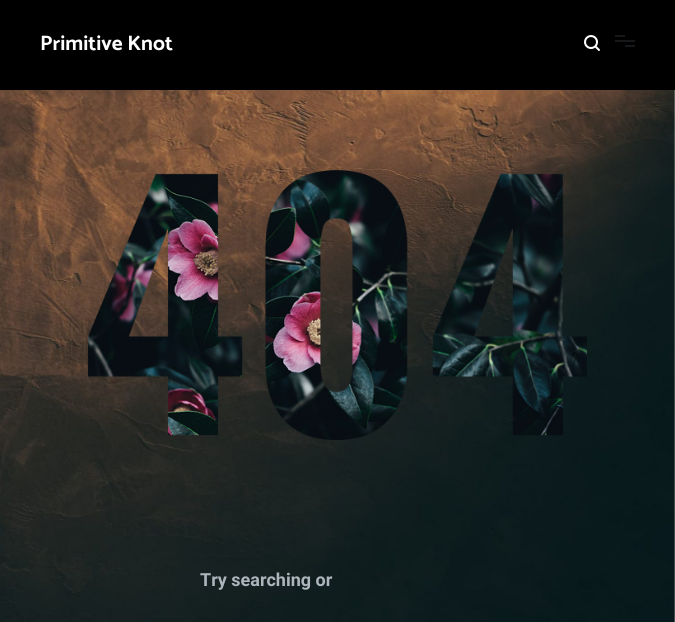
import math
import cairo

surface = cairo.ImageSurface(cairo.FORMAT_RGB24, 675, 622)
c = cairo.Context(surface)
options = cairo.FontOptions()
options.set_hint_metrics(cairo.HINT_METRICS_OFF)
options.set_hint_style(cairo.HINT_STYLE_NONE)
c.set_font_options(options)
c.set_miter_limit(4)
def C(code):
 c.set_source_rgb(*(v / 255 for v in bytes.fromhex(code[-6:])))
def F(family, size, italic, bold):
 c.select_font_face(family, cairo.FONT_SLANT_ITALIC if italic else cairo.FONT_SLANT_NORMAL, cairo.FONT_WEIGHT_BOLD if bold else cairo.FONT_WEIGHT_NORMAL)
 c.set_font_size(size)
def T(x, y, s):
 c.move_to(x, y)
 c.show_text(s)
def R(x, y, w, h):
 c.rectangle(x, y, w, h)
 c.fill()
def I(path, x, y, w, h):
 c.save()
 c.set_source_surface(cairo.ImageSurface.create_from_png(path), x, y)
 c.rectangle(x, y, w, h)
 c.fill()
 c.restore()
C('ffffff')
c.paint()
I('1.png',0,90,675,532)
C('000000')
R(0,0,675,90)
F('Catamaran',21,0,1)
C('ffffff')
T(40,50,'Primitive Knot')
I('2.png',584,35,16,16)
C('16181a')
R(615,35,10,2)
R(615,40,20,2)
R(625,45,10,2)
I('3.png',88,170,499,270)
F('Roboto',18,0,1)
C('adb5bd')
T(200,586,'Try searching or')
surface.write_to_png('o.png')
